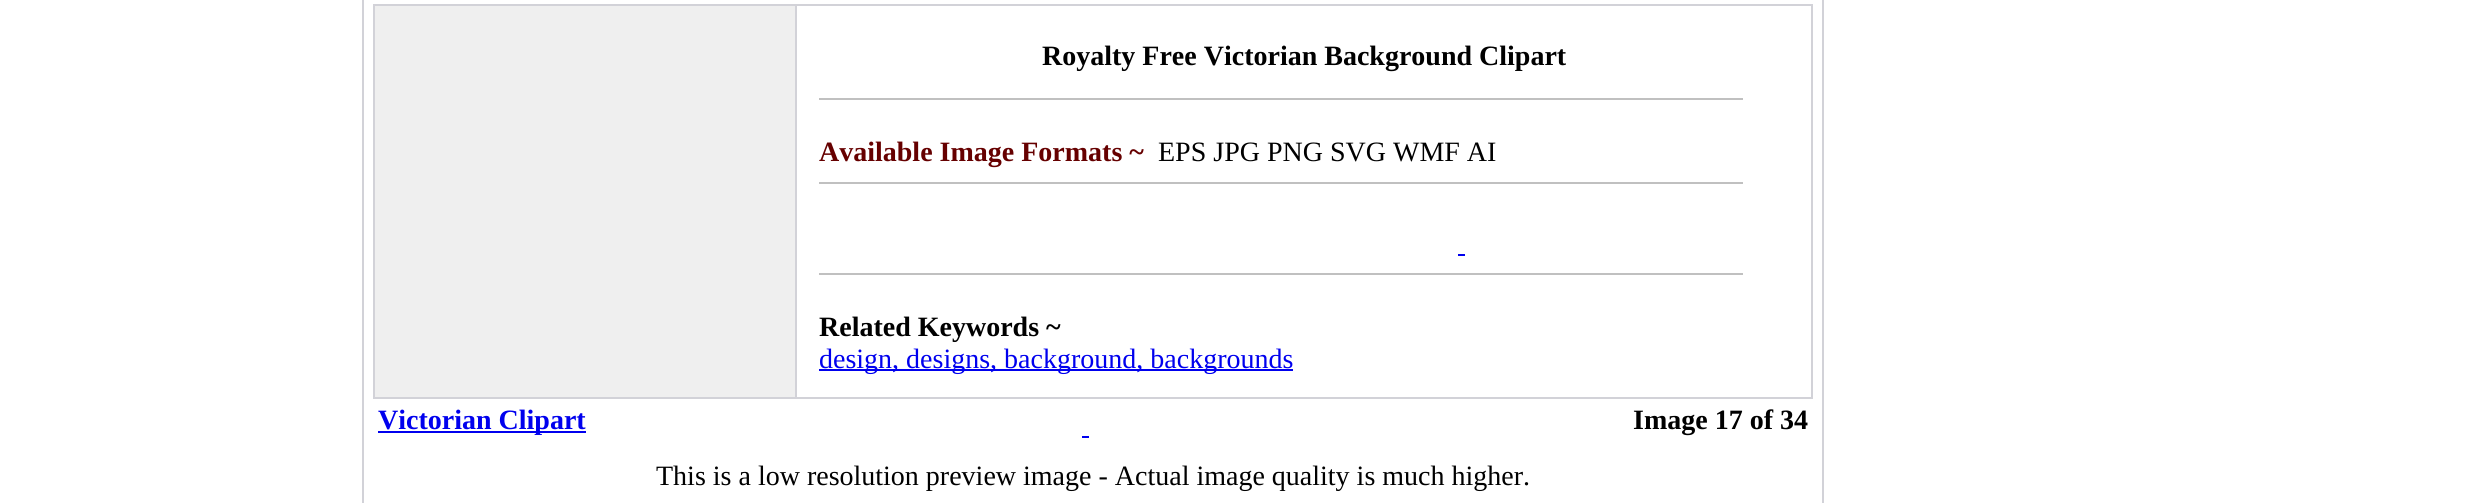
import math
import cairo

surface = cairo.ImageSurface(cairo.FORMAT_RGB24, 2492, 503)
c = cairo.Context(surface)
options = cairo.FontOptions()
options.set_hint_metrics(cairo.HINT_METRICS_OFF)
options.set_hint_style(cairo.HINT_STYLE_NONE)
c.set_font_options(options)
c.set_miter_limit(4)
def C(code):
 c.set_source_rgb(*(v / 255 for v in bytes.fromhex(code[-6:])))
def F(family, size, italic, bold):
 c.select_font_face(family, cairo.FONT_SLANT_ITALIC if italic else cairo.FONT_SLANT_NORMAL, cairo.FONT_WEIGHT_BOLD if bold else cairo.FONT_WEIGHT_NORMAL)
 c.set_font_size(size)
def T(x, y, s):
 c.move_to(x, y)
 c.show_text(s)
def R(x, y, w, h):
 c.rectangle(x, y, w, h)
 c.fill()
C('ffffff')
c.paint()
C('d2d2d8')
R(1822,0,2,503)
R(362,0,2,503)
R(373,4,1440,2)
R(1811,4,2,395)
R(373,397,1440,2)
R(373,4,2,395)
C('efefef')
R(375,6,420,391)
C('d2d2d8')
R(795,4,2,395)
F('Liberation Serif',28,0,1)
C('000000')
T(1042,65,'Royalty Free Victorian Background Clipart')
C('c0c0c0')
R(819,98,924,2)
C('660000')
T(819,161,'Available Image Formats ~')
F('Liberation Serif',28,0,0)
C('000000')
T(1158,161,'EPS JPG PNG SVG WMF AI')
C('c0c0c0')
R(819,182,924,2)
C('0000ee')
R(1458,254,7,2)
C('c0c0c0')
R(819,273,924,2)
F('Liberation Serif',28,0,1)
C('000000')
T(819,336,'Related Keywords ~')
C('0000ee')
R(819,369,474,2)
F('Liberation Serif',28,0,0)
T(819,368,'design, designs, background, backgrounds')
R(378,431,208,2)
F('Liberation Serif',28,0,1)
T(378,429,'Victorian Clipart')
C('000000')
T(1633,429,'Image 17 of 34')
C('0000ee')
R(1082,436,7,2)
F('Liberation Serif',28,0,0)
C('000000')
T(656,485,'This is a low resolution preview image - Actual image quality is much higher.')
surface.write_to_png('o.png')
